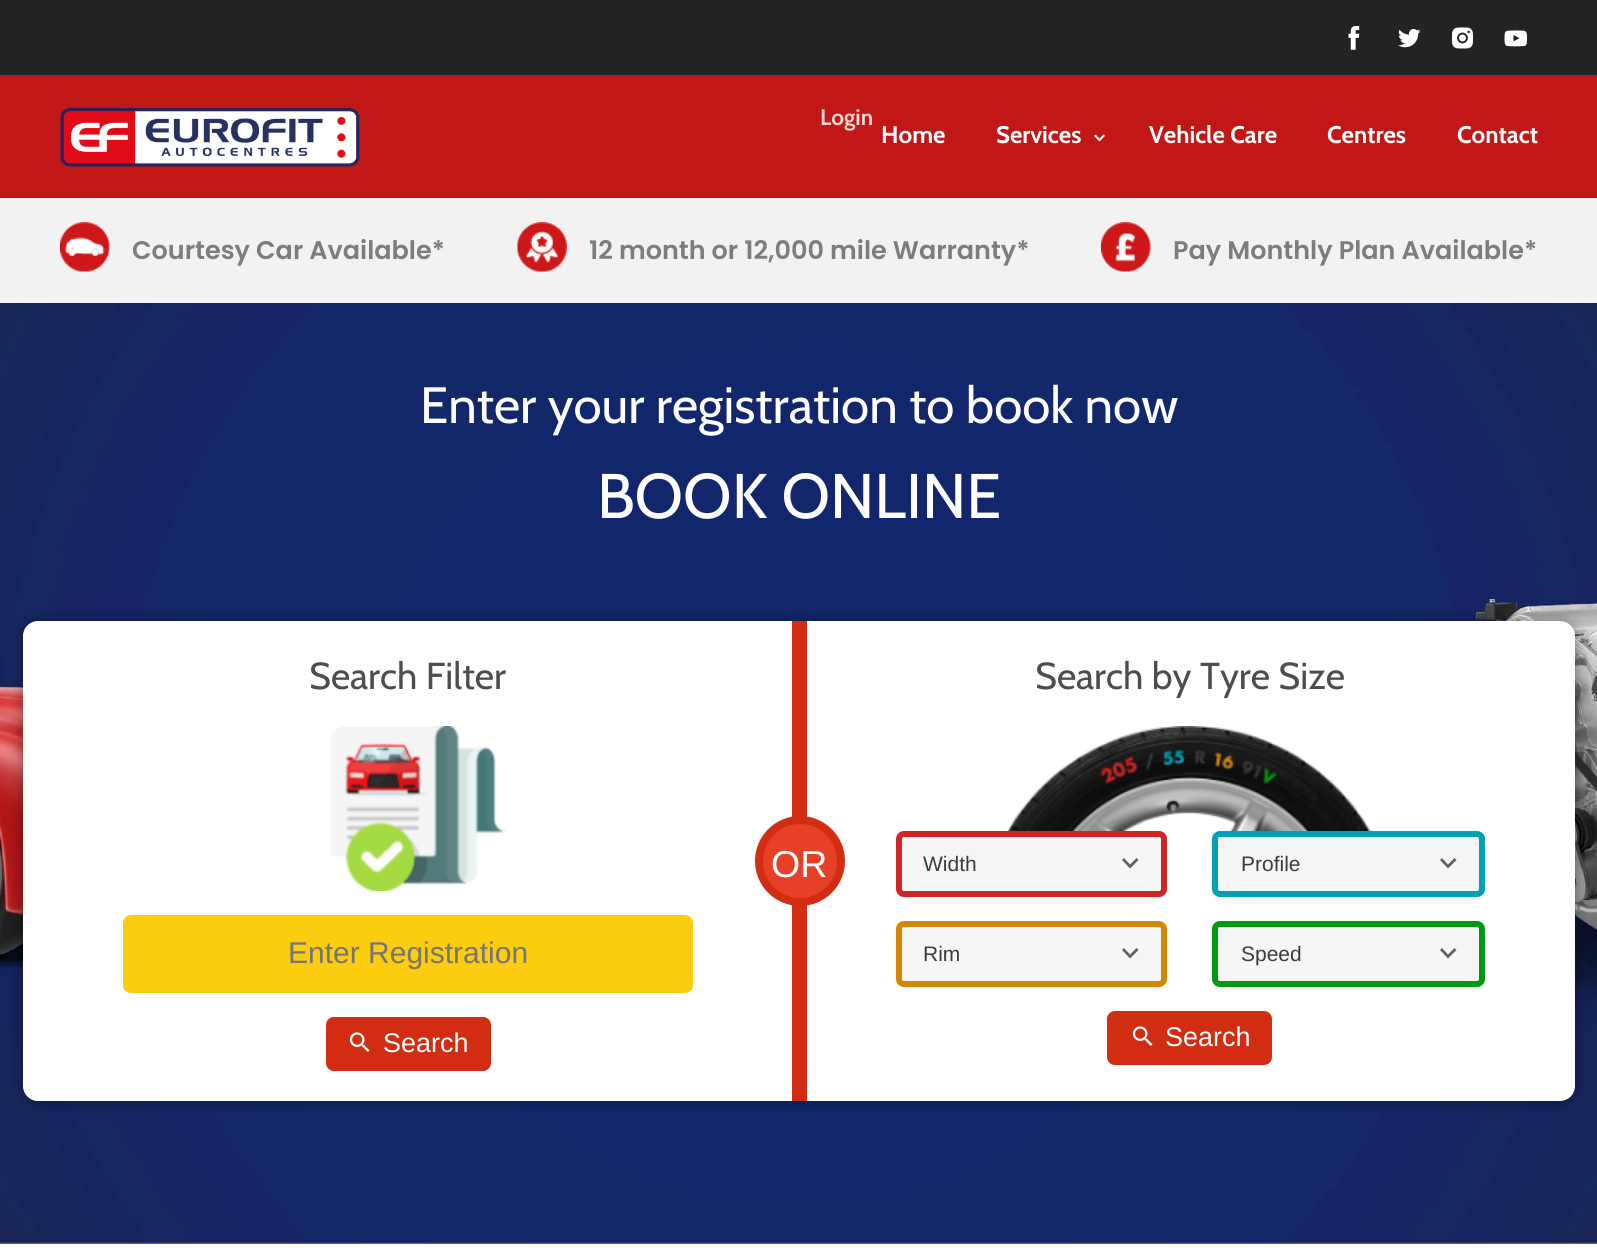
import math
import cairo

surface = cairo.ImageSurface(cairo.FORMAT_RGB24, 1597, 1255)
c = cairo.Context(surface)
options = cairo.FontOptions()
options.set_hint_metrics(cairo.HINT_METRICS_OFF)
options.set_hint_style(cairo.HINT_STYLE_NONE)
c.set_font_options(options)
c.set_miter_limit(4)
def C(code):
 c.set_source_rgb(*(v / 255 for v in bytes.fromhex(code[-6:])))
def F(family, size, italic, bold):
 c.select_font_face(family, cairo.FONT_SLANT_ITALIC if italic else cairo.FONT_SLANT_NORMAL, cairo.FONT_WEIGHT_BOLD if bold else cairo.FONT_WEIGHT_NORMAL)
 c.set_font_size(size)
def T(x, y, s):
 c.move_to(x, y)
 c.show_text(s)
def R(x, y, w, h):
 c.rectangle(x, y, w, h)
 c.fill()
def Q(x, y, w, h, r):
 c.new_sub_path()
 for i, (u, v) in enumerate([(x + w - r, y + h - r), (x + r, y + h - r), (x + r, y + r), (x + w - r, y + r)]):
  c.arc(u, v, r, i * math.pi / 2, (i + 1) * math.pi / 2)
 c.close_path()
def S(x, y, w, h, r, blur, alpha):
 c.push_group_with_content(cairo.CONTENT_ALPHA)
 c.set_operator(cairo.OPERATOR_SOURCE)
 for i in range(15, -16, -2):
  e = blur * i / 6
  if min(w, h) + 2 * e > 0:
   c.set_source_rgba(0, 0, 0, alpha * math.erfc((i - 1) / 8.5) / 2)
   Q(x - e, y - e, w + 2 * e, h + 2 * e, max(0, min(r + e + blur * .6, min(w, h) / 2 + e)))
   c.fill()
 c.mask(c.pop_group())
def I(path, x, y, w, h):
 c.save()
 c.set_source_surface(cairo.ImageSurface.create_from_png(path), x, y)
 c.rectangle(x, y, w, h)
 c.fill()
 c.restore()
C('ffffff')
c.paint()
C('c11717')
R(0,75,1597,123)
C('232323')
R(0,0,1597,75)
I('1.png',1348,26,12,24)
I('2.png',1398,29,23,19)
I('3.png',1452,27,21,22)
I('4.png',1504,30,24,17)
I('5.png',60,108,300,59)
F('Cabin',22.5,0,1)
C('f3d1d1')
T(820,125,'Login')
F('Cabin',24,0,1)
C('ffffff')
T(881,143,'Home')
T(996,143,'Services')
I('6.png',1094,134,11,8)
T(1149,143,'Vehicle Care')
T(1327,143,'Centres')
T(1457,143,'Contact')
C('f2f2f2')
R(0,198,1597,105)
I('7.png',60,222,50,50)
F('Poppins SemiBold',25.5,0,0)
C('7d7d7d')
T(132,259,'Courtesy Car Available*')
I('8.png',517,222,50,50)
T(589,259,'12 month or 12,000 mile Warranty*')
I('9.png',1101,222,50,50)
T(1173,259,'Pay Monthly Plan Available*')
C('223a3e')
R(0,1243,1597,1)
I('10.png',0,303,1597,941)
F('Cabin',51,0,0)
C('ffffff')
T(420,423,'Enter your registration to book now')
F('Cabin',63,0,0)
T(597,518,'BOOK ONLINE')
C('000000')
S(23,621,1552,480,15,7.5,.4)
C('ffffff')
Q(23,621,1552,480,15)
c.fill()
F('Cabin',37.5,0,0)
C('4d4d4d')
T(309,689,'Search Filter')
I('11.png',330,726,176,165)
C('fccc0f')
Q(123,915,570,78,8)
c.fill()
F('Liberation Sans',30,0,0)
C('757575')
T(288,963,'Enter Registration')
C('d22c12')
Q(327,1018,163,52,7)
c.fill_preserve()
c.stroke()
I('12.png',349,1032,21,20)
F('Liberation Sans',27,0,0)
C('ffffff')
T(383,1052,'Search')
C('d22c12')
R(792,621,15,480)
C('e64026')
c.new_path()
c.arc(800,861,41,0,2 * math.pi)
c.fill_preserve()
C('d22c12')
c.set_line_width(8)
c.stroke()
F('Liberation Sans',37.5,0,0)
C('ffffff')
T(771,877,'OR')
F('Cabin',37.5,0,0)
C('4d4d4d')
T(1035,689,'Search by Tyre Size')
I('13.png',1008,726,363,105)
C('f6f6f6')
Q(896,831,271,66,8)
c.fill()
C('626262')
c.new_path()
c.move_to(1124,858)
c.line_to(1122,860)
c.line_to(1130,868.5)
c.line_to(1138.5,860)
c.line_to(1136.5,858)
c.line_to(1130,864.5)
c.close_path()
c.fill()
Q(899,834,265,60,5)
C('d02525')
c.set_line_width(6)
c.stroke()
F('Liberation Sans',21,0,0)
C('3c3c3c')
T(923,871,'Width')
C('f6f6f6')
Q(1212,831,273,66,8)
c.fill()
C('626262')
c.new_path()
c.move_to(1442,858)
c.line_to(1440,860)
c.line_to(1448,868.5)
c.line_to(1456.5,860)
c.line_to(1454.5,858)
c.line_to(1448,864.5)
c.close_path()
c.fill()
Q(1215,834,267,60,5)
C('01a1b3')
c.stroke()
C('3c3c3c')
T(1241,871,'Profile')
C('f6f6f6')
Q(896,921,271,66,8)
c.fill()
C('626262')
c.new_path()
c.move_to(1124,948)
c.line_to(1122,950)
c.line_to(1130,958.5)
c.line_to(1138.5,950)
c.line_to(1136.5,948)
c.line_to(1130,954.5)
c.close_path()
c.fill()
Q(899,924,265,60,5)
C('d48700')
c.stroke()
C('3c3c3c')
T(923,961,'Rim')
C('f6f6f6')
Q(1212,921,273,66,8)
c.fill()
C('626262')
c.new_path()
c.move_to(1442,948)
c.line_to(1440,950)
c.line_to(1448,958.5)
c.line_to(1456.5,950)
c.line_to(1454.5,948)
c.line_to(1448,954.5)
c.close_path()
c.fill()
Q(1215,924,267,60,5)
C('009a10')
c.stroke()
C('3c3c3c')
T(1241,961,'Speed')
C('d22c12')
Q(1108,1012,163,52,7)
c.fill_preserve()
c.set_line_width(2)
c.stroke()
I('12.png',1132,1026,21,20)
F('Liberation Sans',27,0,0)
C('ffffff')
T(1165,1046,'Search')
surface.write_to_png('o.png')
